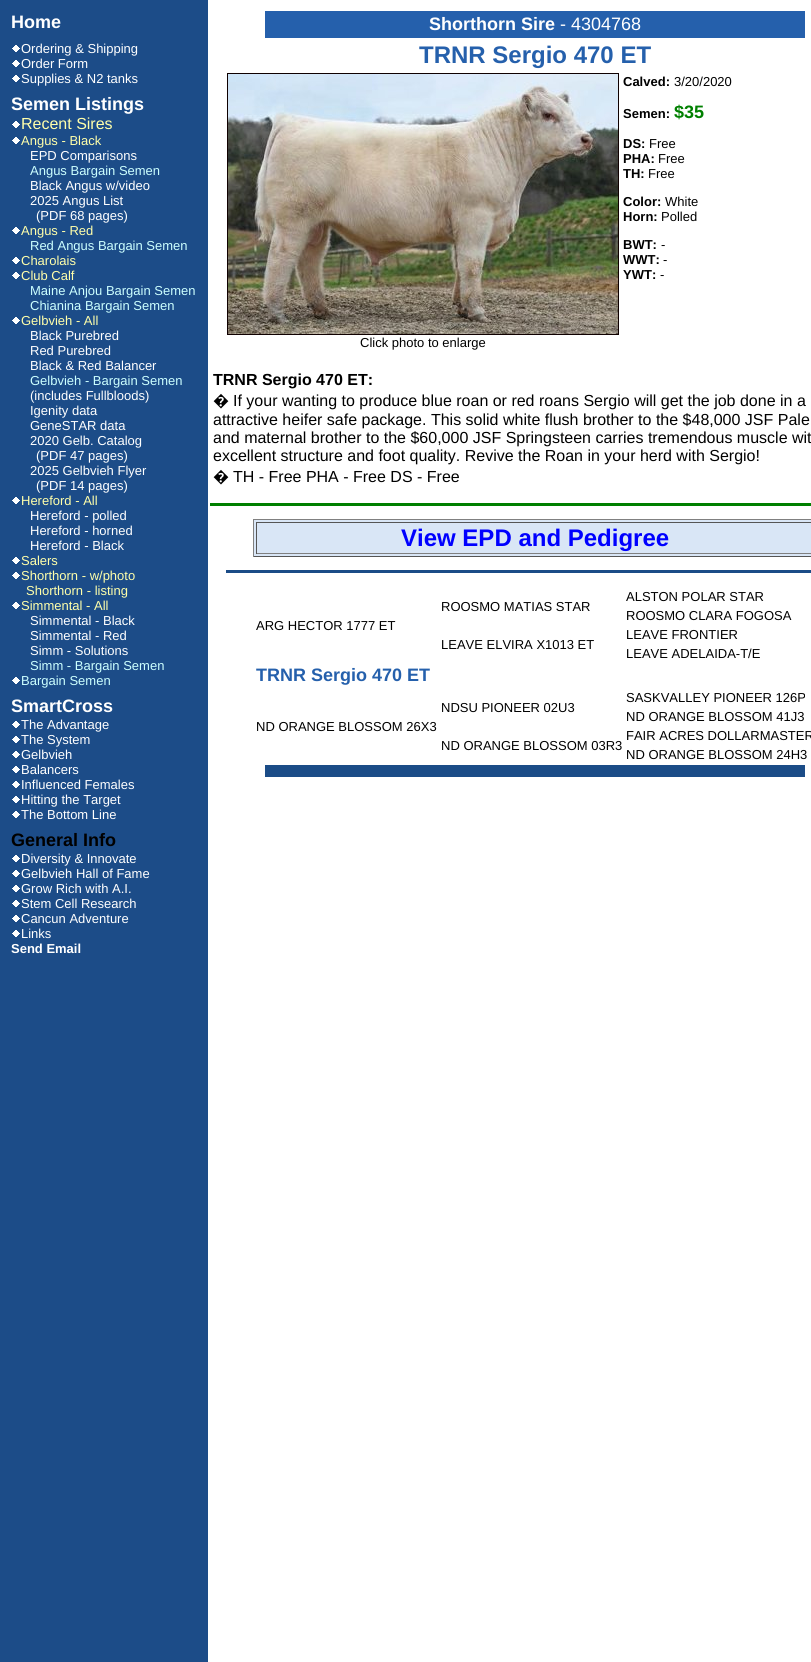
import math
import cairo

surface = cairo.ImageSurface(cairo.FORMAT_RGB24, 811, 1662)
c = cairo.Context(surface)
options = cairo.FontOptions()
options.set_hint_metrics(cairo.HINT_METRICS_OFF)
options.set_hint_style(cairo.HINT_STYLE_NONE)
c.set_font_options(options)
c.set_miter_limit(4)
def C(code):
 c.set_source_rgb(*(v / 255 for v in bytes.fromhex(code[-6:])))
def F(family, size, italic, bold):
 c.select_font_face(family, cairo.FONT_SLANT_ITALIC if italic else cairo.FONT_SLANT_NORMAL, cairo.FONT_WEIGHT_BOLD if bold else cairo.FONT_WEIGHT_NORMAL)
 c.set_font_size(size)
def T(x, y, s):
 c.move_to(x, y)
 c.show_text(s)
def R(x, y, w, h):
 c.rectangle(x, y, w, h)
 c.fill()
def I(path, x, y, w, h):
 c.save()
 c.set_source_surface(cairo.ImageSurface.create_from_png(path), x, y)
 c.rectangle(x, y, w, h)
 c.fill()
 c.restore()
C('ffffff')
c.paint()
C('1c4c88')
R(0,0,208,1662)
F('Liberation Sans',18,0,1)
C('ffffff')
T(11,28,'Home')
I('1.png',12,45,8,7)
F('Liberation Sans',13,0,0)
T(21,53,'Ordering & Shipping')
I('1.png',12,60,8,7)
T(21,68,'Order Form')
I('1.png',12,75,8,7)
T(21,83,'Supplies & N2 tanks')
F('Liberation Sans',18,0,1)
T(11,110,'Semen Listings')
I('1.png',12,121,8,7)
F('Liberation Sans',16,0,0)
C('ffffaa')
T(21,129,'Recent Sires')
I('1.png',12,137,8,7)
F('Liberation Sans',13,0,0)
T(21,145,'Angus - Black')
C('ffffff')
T(30,160,'EPD Comparisons')
C('ccffff')
T(30,175,'Angus Bargain Semen')
C('ffffff')
T(30,190,'Black Angus w/video')
T(30,205,'2025 Angus List')
T(36,220,'(PDF 68 pages)')
I('1.png',12,227,8,7)
C('ffffaa')
T(21,235,'Angus - Red')
C('ccffff')
T(30,250,'Red Angus Bargain Semen')
I('1.png',12,257,8,7)
C('ffffaa')
T(21,265,'Charolais')
I('1.png',12,272,8,7)
T(21,280,'Club Calf')
C('ccffff')
T(30,295,'Maine Anjou Bargain Semen')
T(30,310,'Chianina Bargain Semen')
I('1.png',12,317,8,7)
C('ffffaa')
T(21,325,'Gelbvieh - All')
C('ffffff')
T(30,340,'Black Purebred')
T(30,355,'Red Purebred')
T(30,370,'Black & Red Balancer')
C('ccffff')
T(30,385,'Gelbvieh - Bargain Semen')
C('ffffff')
T(30,400,'(includes Fullbloods)')
T(30,415,'Igenity data')
T(30,430,'GeneSTAR data')
T(30,445,'2020 Gelb. Catalog')
T(36,460,'(PDF 47 pages)')
T(30,475,'2025 Gelbvieh Flyer')
T(36,490,'(PDF 14 pages)')
I('1.png',12,497,8,7)
C('ffffaa')
T(21,505,'Hereford - All')
C('ffffff')
T(30,520,'Hereford - polled')
T(30,535,'Hereford - horned')
T(30,550,'Hereford - Black')
I('1.png',12,557,8,7)
C('ffffaa')
T(21,565,'Salers')
I('1.png',12,572,8,7)
T(21,580,'Shorthorn - w/photo')
T(26,595,'Shorthorn - listing')
I('1.png',12,602,8,7)
T(21,610,'Simmental - All')
C('ffffff')
T(30,625,'Simmental - Black')
T(30,640,'Simmental - Red')
T(30,655,'Simm - Solutions')
C('ccffff')
T(30,670,'Simm - Bargain Semen')
I('1.png',12,677,8,7)
T(21,685,'Bargain Semen')
F('Liberation Sans',18,0,1)
C('ffffff')
T(11,712,'SmartCross')
I('1.png',12,721,8,7)
F('Liberation Sans',13,0,0)
T(21,729,'The Advantage')
I('1.png',12,736,8,7)
T(21,744,'The System')
I('1.png',12,751,8,7)
T(21,759,'Gelbvieh')
I('1.png',12,766,8,7)
T(21,774,'Balancers')
I('1.png',12,781,8,7)
T(21,789,'Influenced Females')
I('1.png',12,796,8,7)
T(21,804,'Hitting the Target')
I('1.png',12,811,8,7)
T(21,819,'The Bottom Line')
F('Liberation Sans',18,0,1)
C('000000')
T(11,846,'General Info')
I('1.png',12,855,8,7)
F('Liberation Sans',13,0,0)
C('ffffff')
T(21,863,'Diversity & Innovate')
I('1.png',12,870,8,7)
T(21,878,'Gelbvieh Hall of Fame')
I('1.png',12,885,8,7)
T(21,893,'Grow Rich with A.I.')
I('1.png',12,900,8,7)
T(21,908,'Stem Cell Research')
I('1.png',12,915,8,7)
T(21,923,'Cancun Adventure')
I('1.png',12,930,8,7)
T(21,938,'Links')
F('Liberation Sans',13,0,1)
T(11,953,'Send Email')
C('2560ac')
R(265,11,540,27)
F('Liberation Sans',18,0,1)
C('ffffff')
T(429,30,'Shorthorn Sire')
F('Liberation Sans',18,0,0)
T(560,30,'- 4304768')
F('Liberation Sans',24,0,1)
C('2560ac')
T(419,63,'TRNR Sergio 470 ET')
F('Liberation Sans',13,0,1)
C('000000')
T(623,86,'Calved:')
F('Liberation Sans',13,0,0)
T(674,86,'3/20/2020')
F('Liberation Sans',13,0,1)
T(623,118,'Semen:')
F('Liberation Sans',18,0,1)
C('008000')
T(674,118,'$35')
F('Liberation Sans',13,0,1)
C('000000')
T(623,148,'DS:')
F('Liberation Sans',13,0,0)
T(649,148,'Free')
F('Liberation Sans',13,0,1)
T(623,163,'PHA:')
F('Liberation Sans',13,0,0)
T(658,163,'Free')
F('Liberation Sans',13,0,1)
T(623,178,'TH:')
F('Liberation Sans',13,0,0)
T(648,178,'Free')
F('Liberation Sans',13,0,1)
T(623,206,'Color:')
F('Liberation Sans',13,0,0)
T(665,206,'White')
F('Liberation Sans',13,0,1)
T(623,221,'Horn:')
F('Liberation Sans',13,0,0)
T(661,221,'Polled')
F('Liberation Sans',13,0,1)
T(623,249,'BWT:')
F('Liberation Sans',13,0,0)
T(661,249,'-')
F('Liberation Sans',13,0,1)
T(623,264,'WWT:')
F('Liberation Sans',13,0,0)
T(663,264,'-')
F('Liberation Sans',13,0,1)
T(623,279,'YWT:')
F('Liberation Sans',13,0,0)
T(660,279,'-')
c.rectangle(227.5,73.5,391,261)
C('0f0000')
c.set_line_width(1)
c.stroke()
I('2.png',228,74,390,260)
C('000000')
T(360,347,'Click photo to enlarge')
F('Liberation Sans',16,0,1)
T(213,385,'TRNR Sergio 470 ET:')
F('Noto Sans',16,0,0)
T(213,406,'�')
F('Liberation Sans',16,0,0)
T(233,406,'If your wanting to produce blue roan or red roans Sergio will get the job done in a')
T(213,425,'attractive heifer safe package. This solid white flush brother to the $48,000 JSF Pale')
T(213,443,'and maternal brother to the $60,000 JSF Springsteen carries tremendous muscle wit')
T(213,461,'excellent structure and foot quality. Revive the Roan in your herd with Sergio!')
F('Noto Sans',16,0,0)
T(213,482,'�')
F('Liberation Sans',16,0,0)
T(233,482,'TH - Free PHA - Free DS - Free')
C('008000')
R(210,503,601,3)
C('d9e6f6')
R(254,520,557,36)
C('808080')
R(253,519,558,1)
C('555555')
R(253,556,558,1)
C('808080')
R(253,519,1,38)
C('555555')
R(256,522,555,1)
C('808080')
R(256,553,555,1)
C('555555')
R(256,522,1,32)
F('Liberation Sans',24,0,1)
C('0000ff')
T(401,546,'View EPD and Pedigree')
C('1b4c87')
R(226,570,585,3)
F('Liberation Sans',13,0,0)
C('000000')
T(626,601,'ALSTON POLAR STAR')
T(441,611,'ROOSMO MATIAS STAR')
T(256,630,'ARG HECTOR 1777 ET')
T(626,620,'ROOSMO CLARA FOGOSA')
T(626,639,'LEAVE FRONTIER')
T(441,649,'LEAVE ELVIRA X1013 ET')
T(626,658,'LEAVE ADELAIDA-T/E')
F('Liberation Sans',18,0,1)
C('2560ac')
T(256,681,'TRNR Sergio 470 ET')
F('Liberation Sans',13,0,0)
C('000000')
T(626,702,'SASKVALLEY PIONEER 126P')
T(441,712,'NDSU PIONEER 02U3')
T(256,731,'ND ORANGE BLOSSOM 26X3')
T(626,721,'ND ORANGE BLOSSOM 41J3')
T(626,740,'FAIR ACRES DOLLARMASTER')
T(441,750,'ND ORANGE BLOSSOM 03R3')
T(626,759,'ND ORANGE BLOSSOM 24H3')
C('1b4c87')
R(265,765,540,12)
surface.write_to_png('o.png')
